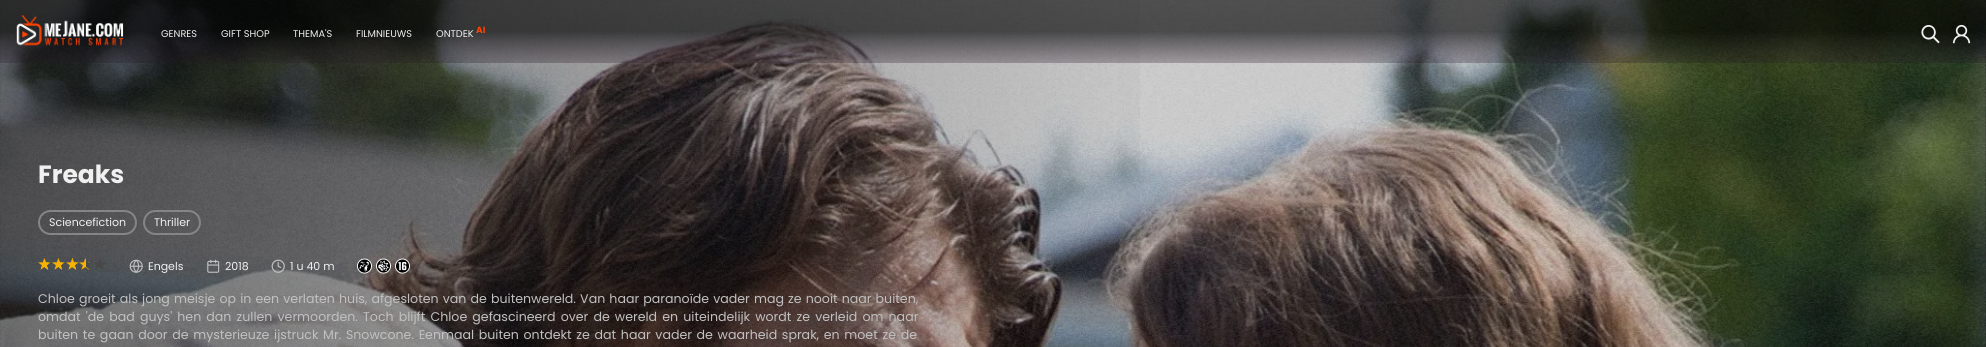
import math
import cairo

surface = cairo.ImageSurface(cairo.FORMAT_RGB24, 1986, 347)
c = cairo.Context(surface)
options = cairo.FontOptions()
options.set_hint_metrics(cairo.HINT_METRICS_OFF)
options.set_hint_style(cairo.HINT_STYLE_NONE)
c.set_font_options(options)
c.set_miter_limit(4)
def C(code):
 c.set_source_rgb(*(v / 255 for v in bytes.fromhex(code[-6:])))
def F(family, size, italic, bold):
 c.select_font_face(family, cairo.FONT_SLANT_ITALIC if italic else cairo.FONT_SLANT_NORMAL, cairo.FONT_WEIGHT_BOLD if bold else cairo.FONT_WEIGHT_NORMAL)
 c.set_font_size(size)
def T(x, y, s):
 c.move_to(x, y)
 c.show_text(s)
def L(x, y, s, letter, word):
 c.move_to(x, y)
 for ch in s:
  c.show_text(ch)
  c.rel_move_to(letter + word * (ch == ' '), 0)
def R(x, y, w, h):
 c.rectangle(x, y, w, h)
 c.fill()
def Q(x, y, w, h, r):
 c.new_sub_path()
 for i, (u, v) in enumerate([(x + w - r, y + h - r), (x + r, y + h - r), (x + r, y + r), (x + w - r, y + r)]):
  c.arc(u, v, r, i * math.pi / 2, (i + 1) * math.pi / 2)
 c.close_path()
def I(path, x, y, w, h):
 c.save()
 c.set_source_surface(cairo.ImageSurface.create_from_png(path), x, y)
 c.rectangle(x, y, w, h)
 c.fill()
 c.restore()
C('101010')
c.paint()
I('4.png',0,0,1986,347)
gradient = cairo.LinearGradient(0,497,1192,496)
gradient.add_color_stop_rgba(0,0.063,0.063,0.063,.5)
gradient.add_color_stop_rgba(1,0.063,0.063,0.063,0)
c.set_source(gradient)
R(0,0,1140,347)
gradient = cairo.LinearGradient(993,0,993,63)
gradient.add_color_stop_rgba(0,0,0,0,.61)
gradient.add_color_stop_rgba(.5,0,0,0,.63)
gradient.add_color_stop_rgba(1,0.149,0.102,0.157,.28)
c.set_source(gradient)
R(0,0,1986,63)
I('1.png',16,15,108,31)
F('Poppins',9.75,0,0)
C('f0f0f0')
T(161,37,'GENRES')
T(221,37,'GIFT SHOP')
T(293,37,'THEMA\'S')
T(356,37,'FILMNIEUWS')
T(436,37,'ONTDEK')
F('Poppins',9,0,1)
C('ff4300')
T(476,33,'AI')
I('2.png',1921,25,19,19)
I('3.png',1952,24,19,20)
F('Poppins',25,0,1)
C('f0f0f0')
T(38,183,'Freaks')
Q(39,211,97,23,11.5)
C('858585')
c.stroke()
F('Poppins',11,0,0)
C('f0f0f0')
T(49,226,'Sciencefiction')
Q(144,211,56,23,11.5)
C('858585')
c.stroke()
C('f0f0f0')
T(154,226,'Thriller')
I('5.png',38,258,10,12)
I('6.png',52,258,10,12)
I('7.png',66,258,10,12)
I('8.png',72,258,7,12)
I('9.png',79,258,11,12)
I('10.png',86,258,6,11)
I('11.png',93,258,11,12)
I('12.png',45,260,6,10)
I('13.png',59,260,6,10)
I('14.png',100,258,6,11)
I('15.png',129,259,14,14)
T(148,270,'Engels')
I('16.png',207,259,13,14)
T(225,270,'2018')
I('17.png',271,259,14,14)
T(290,270,'1 u 40 m')
I('18.png',357,258,15,16)
I('19.png',376,258,15,16)
I('20.png',395,258,15,16)
I('21.png',357,259,14,14)
I('22.png',376,259,14,14)
I('23.png',395,259,14,14)
F('Poppins',12.6,0,0)
C('c1c1c1')
L(38,303,'Chloe groeit als jong meisje op in een verlaten huis, afgesloten van de buitenwereld. Van haar paranoïde vader mag ze nooit naar buiten,',0,.75)
L(38,321,'omdat \'de bad guys\' hen dan zullen vermoorden. Toch blijft Chloe gefascineerd over de wereld en uiteindelijk wordt ze verleid om naar',0,1.75)
L(38,339,'buiten te gaan door de mysterieuze ijstruck Mr. Snowcone. Eenmaal buiten ontdekt ze dat haar vader de waarheid sprak, en moet ze de',0,1.3)
surface.write_to_png('o.png')
